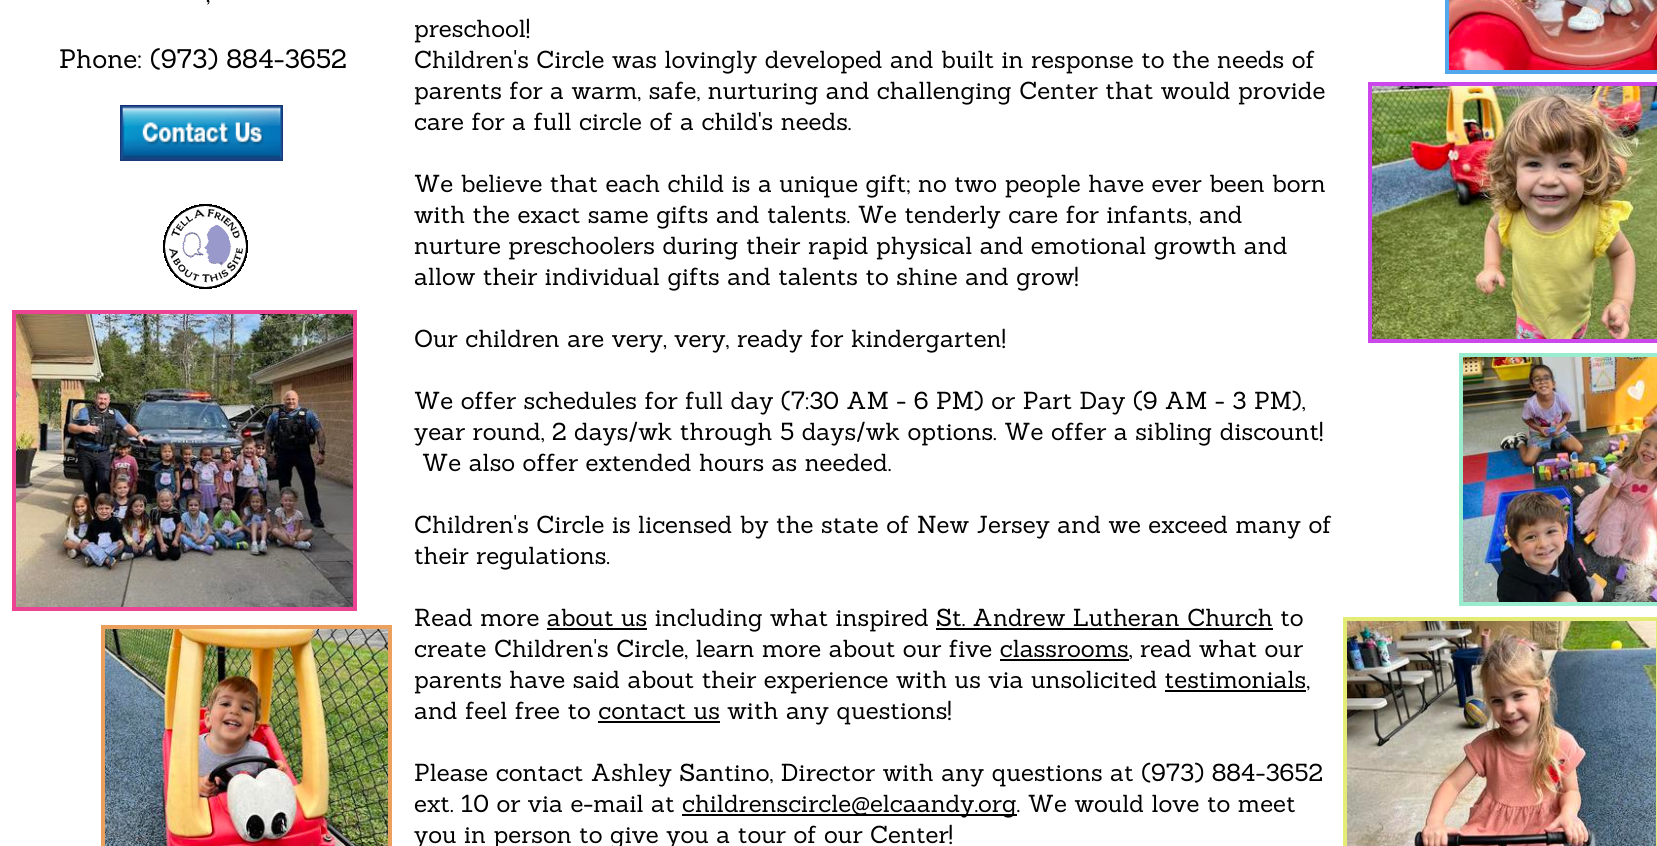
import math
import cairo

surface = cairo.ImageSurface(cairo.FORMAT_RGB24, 1657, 846)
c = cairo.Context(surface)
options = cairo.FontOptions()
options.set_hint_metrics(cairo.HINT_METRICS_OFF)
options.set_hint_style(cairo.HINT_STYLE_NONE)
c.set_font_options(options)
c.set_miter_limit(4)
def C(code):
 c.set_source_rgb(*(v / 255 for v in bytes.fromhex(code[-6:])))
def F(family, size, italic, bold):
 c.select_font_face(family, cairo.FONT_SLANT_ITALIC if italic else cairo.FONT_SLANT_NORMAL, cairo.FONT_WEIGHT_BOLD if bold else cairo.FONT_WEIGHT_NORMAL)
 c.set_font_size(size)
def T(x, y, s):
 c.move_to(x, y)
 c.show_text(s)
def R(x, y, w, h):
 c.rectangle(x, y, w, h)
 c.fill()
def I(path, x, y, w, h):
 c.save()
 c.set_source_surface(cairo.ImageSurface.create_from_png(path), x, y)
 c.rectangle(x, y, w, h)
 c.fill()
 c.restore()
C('ffffff')
c.paint()
F('Sanchez',26,0,0)
C('000000')
T(206,2,',')
T(59,68,'Phone: (973) 884-3652')
F('Sanchez',24,0,0)
T(414,37,'preschool!')
T(414,68,'Children\'s Circle was lovingly developed and built in response to the needs of')
T(414,99,'parents for a warm, safe, nurturing and challenging Center that would provide')
T(414,130,'care for a full circle of a child\'s needs.')
T(414,192,'We believe that each child is a unique gift; no two people have ever been born')
T(414,223,'with the exact same gifts and talents. We tenderly care for infants, and')
T(414,254,'nurture preschoolers during their rapid physical and emotional growth and')
T(414,285,'allow their individual gifts and talents to shine and grow!')
T(414,347,'Our children are very, very, ready for kindergarten!')
T(414,409,'We offer schedules for full day (7:30 AM - 6 PM) or Part Day (9 AM - 3 PM),')
T(414,440,'year round, 2 days/wk through 5 days/wk options. We offer a sibling discount!')
T(422,471,'We also offer extended hours as needed.')
T(414,533,'Children\'s Circle is licensed by the state of New Jersey and we exceed many of')
T(414,564,'their regulations.')
T(414,626,'Read more about us including what inspired St. Andrew Lutheran Church to')
R(547,628,100,2)
R(936,628,337,2)
T(414,657,'create Children\'s Circle, learn more about our five classrooms, read what our')
R(1000,659,129,2)
T(414,688,'parents have said about their experience with us via unsolicited testimonials,')
R(1165,690,141,2)
T(414,719,'and feel free to contact us with any questions!')
R(598,721,122,2)
T(414,781,'Please contact Ashley Santino, Director with any questions at (973) 884-3652')
T(414,812,'ext. 10 or via e-mail at')
R(682,814,335,2)
T(682,812,'childrenscircle@elcaandy.org. We would love to meet')
T(414,843,'you in person to give you a tour of our Center!')
c.rectangle(1447,-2,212,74)
C('52a8ec')
c.set_line_width(4)
c.stroke()
I('1.png',1449,0,208,70)
I('2.png',120,105,163,56)
c.rectangle(1370,84,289,257)
C('cb47ec')
c.stroke()
I('3.png',1372,86,285,253)
I('4.png',163,204,85,85)
c.rectangle(14,312,341,297)
C('ec4493')
c.stroke()
I('5.png',16,314,337,293)
c.rectangle(1461,355,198,249)
C('99ecce')
c.stroke()
I('6.png',1463,357,194,245)
c.rectangle(103,627,287,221)
C('eca05e')
c.stroke()
I('7.png',105,629,283,217)
c.rectangle(1345,619,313,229)
C('e4ec76')
c.stroke()
I('8.png',1347,621,309,225)
surface.write_to_png('o.png')
